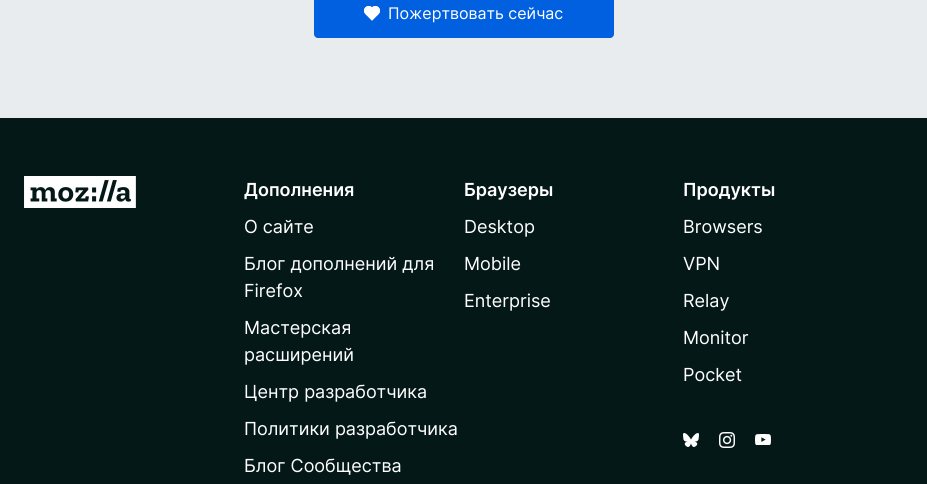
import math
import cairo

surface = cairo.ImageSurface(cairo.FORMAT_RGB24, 927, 484)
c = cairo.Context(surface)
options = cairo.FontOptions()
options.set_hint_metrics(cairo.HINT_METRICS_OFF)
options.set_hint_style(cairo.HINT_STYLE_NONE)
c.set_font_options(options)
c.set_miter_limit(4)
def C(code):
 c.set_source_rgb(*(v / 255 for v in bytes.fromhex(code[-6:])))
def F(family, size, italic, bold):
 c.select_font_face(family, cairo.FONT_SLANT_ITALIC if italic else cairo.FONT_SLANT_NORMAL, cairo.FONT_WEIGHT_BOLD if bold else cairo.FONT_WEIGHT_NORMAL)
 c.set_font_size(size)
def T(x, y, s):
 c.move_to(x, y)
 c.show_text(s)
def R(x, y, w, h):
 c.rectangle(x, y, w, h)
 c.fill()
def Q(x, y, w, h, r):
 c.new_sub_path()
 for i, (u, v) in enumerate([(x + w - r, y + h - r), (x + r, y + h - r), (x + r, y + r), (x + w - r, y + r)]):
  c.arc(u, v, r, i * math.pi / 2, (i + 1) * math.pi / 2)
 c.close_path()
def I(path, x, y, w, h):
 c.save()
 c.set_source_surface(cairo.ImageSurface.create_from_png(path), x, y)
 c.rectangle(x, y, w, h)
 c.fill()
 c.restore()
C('e9ecef')
c.paint()
C('0060df')
Q(314,-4,300,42,4)
c.fill()
I('1.png',364,6,16,15)
F('Inter',16,0,0)
C('ffffff')
T(388,19,'Пожертвовать сейчас')
C('051818')
R(0,118,927,366)
I('2.png',24,176,112,32)
F('Inter SemiBold',18,0,0)
C('ffffff')
T(244,196,'Дополнения')
F('Inter',18,0,0)
T(244,233,'О сайте')
T(244,270,'Блог дополнений для')
T(244,297,'Firefox')
T(244,334,'Мастерская')
T(244,361,'расширений')
T(244,398,'Центр разработчика')
T(244,435,'Политики разработчика')
T(244,472,'Блог Сообщества')
F('Inter SemiBold',18,0,0)
T(464,196,'Браузеры')
F('Inter',18,0,0)
T(464,233,'Desktop')
T(464,270,'Mobile')
T(464,307,'Enterprise')
F('Inter SemiBold',18,0,0)
T(683,196,'Продукты')
F('Inter',18,0,0)
T(683,233,'Browsers')
T(683,270,'VPN')
T(683,307,'Relay')
T(683,344,'Monitor')
T(683,381,'Pocket')
I('3.png',683,433,16,14)
I('4.png',719,432,16,16)
I('5.png',755,434,16,11)
surface.write_to_png('o.png')
